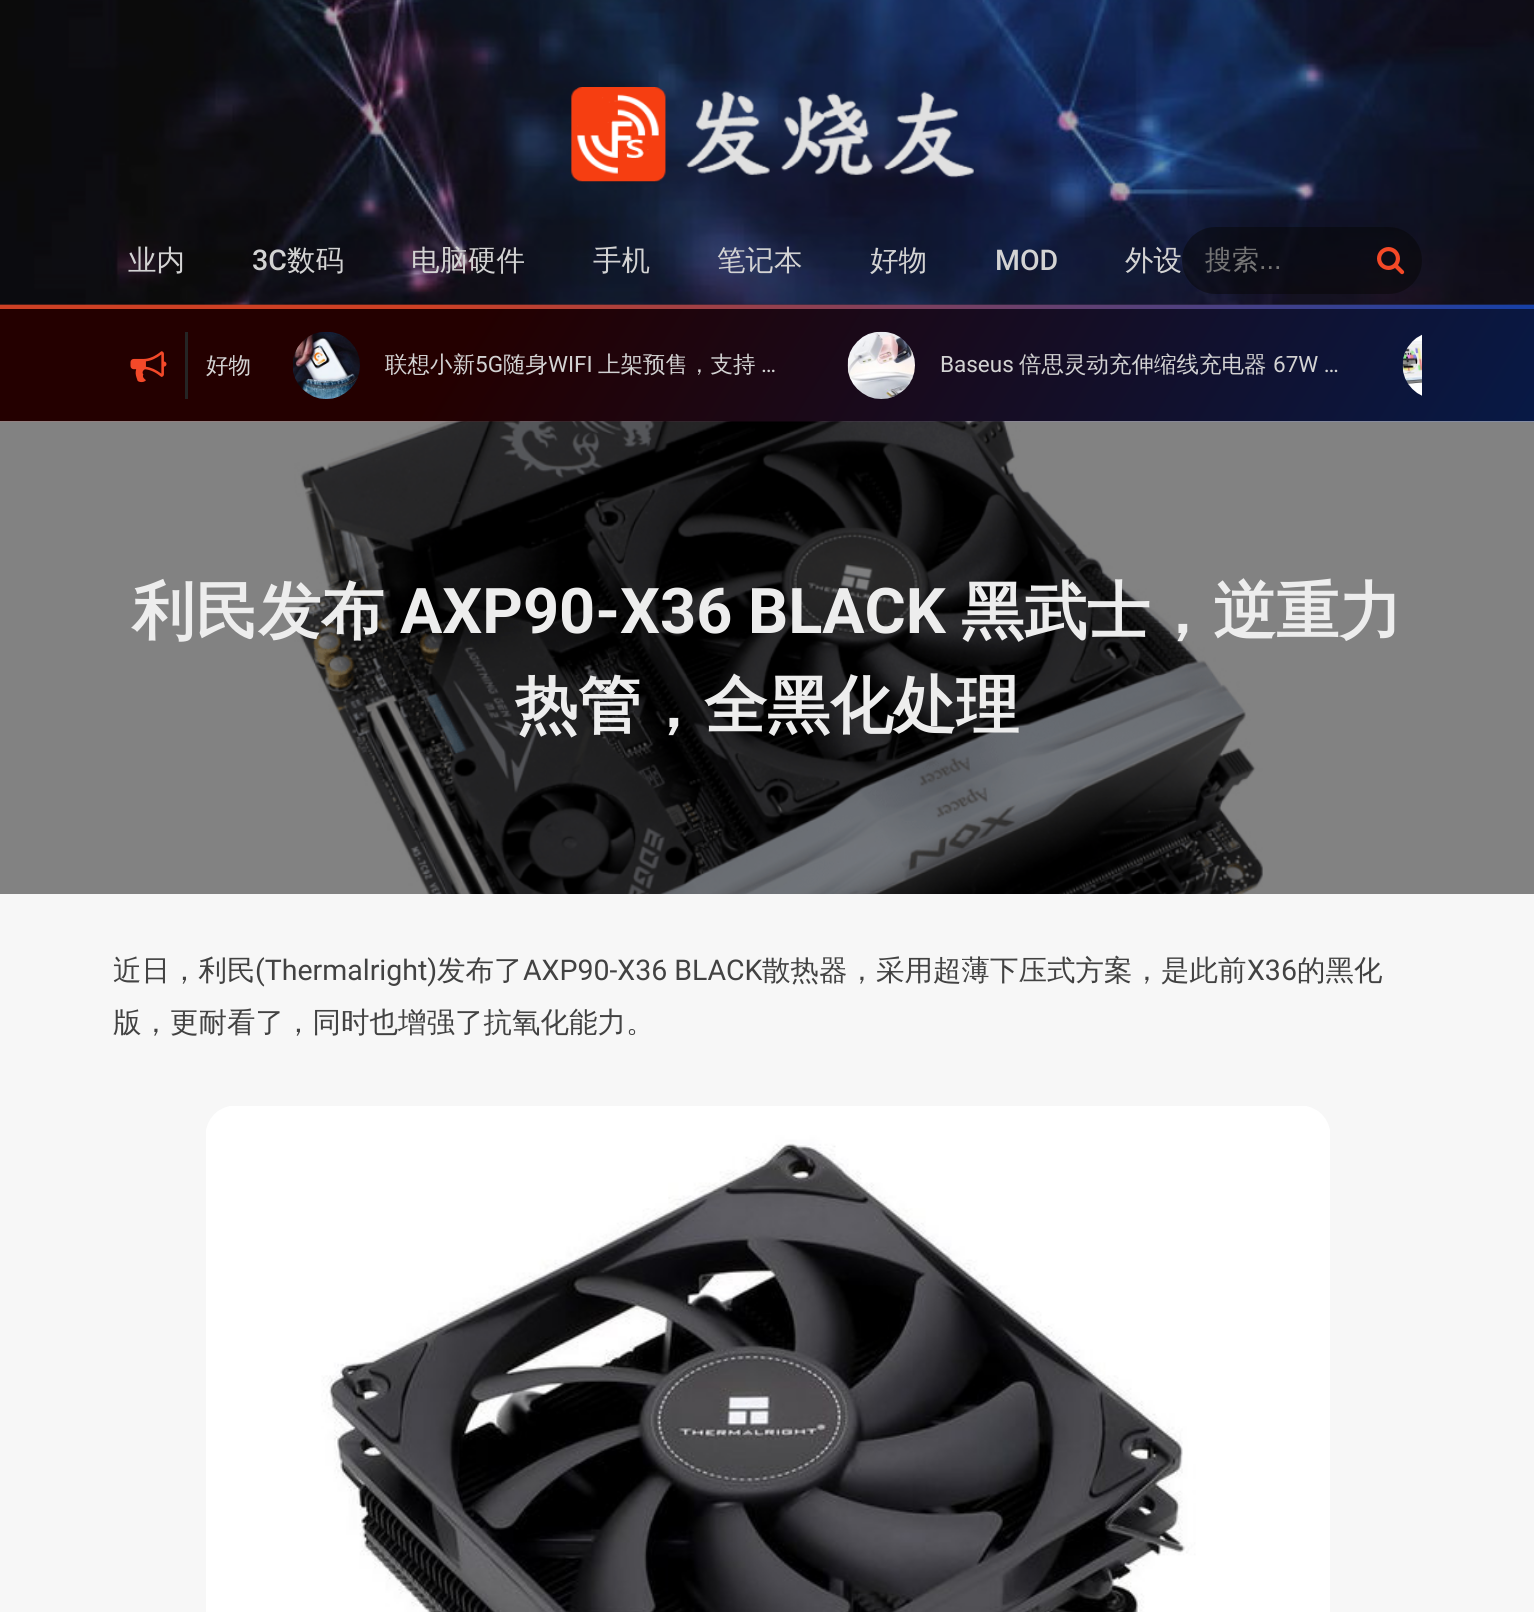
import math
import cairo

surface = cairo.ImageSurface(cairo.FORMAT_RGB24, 1534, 1612)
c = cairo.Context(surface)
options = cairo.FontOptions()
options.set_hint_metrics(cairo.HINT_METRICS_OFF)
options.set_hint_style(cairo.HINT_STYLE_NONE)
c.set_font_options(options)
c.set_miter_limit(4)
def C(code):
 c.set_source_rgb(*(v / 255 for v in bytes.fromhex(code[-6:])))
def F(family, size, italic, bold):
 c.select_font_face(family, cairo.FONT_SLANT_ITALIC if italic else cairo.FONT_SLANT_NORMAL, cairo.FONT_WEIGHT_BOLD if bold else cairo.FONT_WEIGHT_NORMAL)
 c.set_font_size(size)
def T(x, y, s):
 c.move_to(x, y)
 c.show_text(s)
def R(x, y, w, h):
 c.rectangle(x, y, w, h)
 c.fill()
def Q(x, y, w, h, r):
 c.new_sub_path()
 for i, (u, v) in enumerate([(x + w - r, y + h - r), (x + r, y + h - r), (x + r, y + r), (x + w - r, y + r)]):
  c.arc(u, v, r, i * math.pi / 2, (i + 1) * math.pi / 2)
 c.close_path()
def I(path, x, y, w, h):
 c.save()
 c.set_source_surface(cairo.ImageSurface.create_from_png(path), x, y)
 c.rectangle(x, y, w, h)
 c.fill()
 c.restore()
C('f7f7f7')
c.paint()
gradient = cairo.LinearGradient(194,-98,1341,619)
gradient.add_color_stop_rgba(.3,0.561,0.196,0.125,1)
gradient.add_color_stop_rgba(1,0.09,0.196,0.463,1)
c.set_source(gradient)
R(0,304,1534,1)
I('1.png',0,0,1534,305)
I('2.png',571,87,403,95)
gradient = cairo.LinearGradient(194,-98,1341,619)
gradient.add_color_stop_rgba(.3,0.808,0.251,0.141,1)
gradient.add_color_stop_rgba(1,0.086,0.251,0.659,1)
c.set_source(gradient)
R(0,305,1534,4)
F('WenQuanYi Zen Hei Medium',28.5,0,0)
C('d3d3d3')
T(128,270,'业内')
F('Roboto Medium',28.5,0,0)
T(252,270,'3C')
F('WenQuanYi Zen Hei Medium',28.5,0,0)
T(287,270,'数码')
T(411,270,'电脑硬件')
T(593,270,'手机')
T(717,270,'笔记本')
T(870,270,'好物')
F('Roboto Medium',28.5,0,0)
T(995,270,'MOD')
F('WenQuanYi Zen Hei Medium',28.5,0,0)
T(1125,270,'外设')
c.set_source_rgba(0.027,0.027,0.027,0.5)
Q(1182,227,240,67,33.5)
c.fill()
F('WenQuanYi Zen Hei Medium',27,0,0)
C('757575')
T(1205,269,'搜索')
F('Liberation Sans',27,0,0)
T(1259,269,'...')
I('3.png',1377,247,28,28)
gradient = cairo.LinearGradient(190,4.7,1344,726)
gradient.add_color_stop_rgba(.3,0.141,0,0,1)
gradient.add_color_stop_rgba(1,0.031,0.098,0.271,1)
c.set_source(gradient)
R(0,309,1534,113)
C('252525')
R(185,332,3,67)
I('4.png',130,351,37,32)
F('WenQuanYi Zen Hei Medium',22.5,0,0)
C('d3d3d3')
T(206,373,'好物')
I('5.png',293,332,67,67)
T(385,372,'联想小新')
F('Roboto',22.5,0,0)
T(475,372,'5G')
F('WenQuanYi Zen Hei Medium',22.5,0,0)
T(503,372,'随身')
F('Roboto',22.5,0,0)
T(548,372,'WIFI')
F('WenQuanYi Zen Hei Medium',22.5,0,0)
T(598,372,'上架预售，支持')
F('Roboto',22.5,0,0)
T(761,372,'…')
I('6.png',847,331,68,68)
T(940,372,'Baseus')
F('WenQuanYi Zen Hei Medium',22.5,0,0)
T(1019,372,'倍思灵动充伸缩线充电器')
F('Roboto',22.5,0,0)
T(1273,372,'67W …')
I('7.png',1402,334,20,62)
I('8.png',0,421,1534,473)
F('WenQuanYi Zen Hei',63,0,1)
C('ededed')
T(132,633,'利民发布')
F('Roboto',63,0,1)
T(400,633,'AXP90-X36 BLACK')
F('WenQuanYi Zen Hei',63,0,1)
T(961,633,'黑武士，逆重力')
T(515,727,'热管，全黑化处理')
F('WenQuanYi Zen Hei Medium',28.5,0,0)
C('424242')
T(113,980,'近日，利民')
F('Roboto',28.5,0,0)
T(255,980,'(Thermalright)')
F('WenQuanYi Zen Hei Medium',28.5,0,0)
T(437,980,'发布了')
F('Roboto',28.5,0,0)
T(523,980,'AXP90-X36 BLACK')
F('WenQuanYi Zen Hei Medium',28.5,0,0)
T(762,980,'散热器，采用超薄下压式方案，是此前')
F('Roboto',28.5,0,0)
T(1247,980,'X36')
F('WenQuanYi Zen Hei Medium',28.5,0,0)
T(1297,980,'的黑化')
T(113,1032,'版，更耐看了，同时也增强了抗氧化能力。')
I('9.png',206,1106,1124,506)
surface.write_to_png('o.png')
